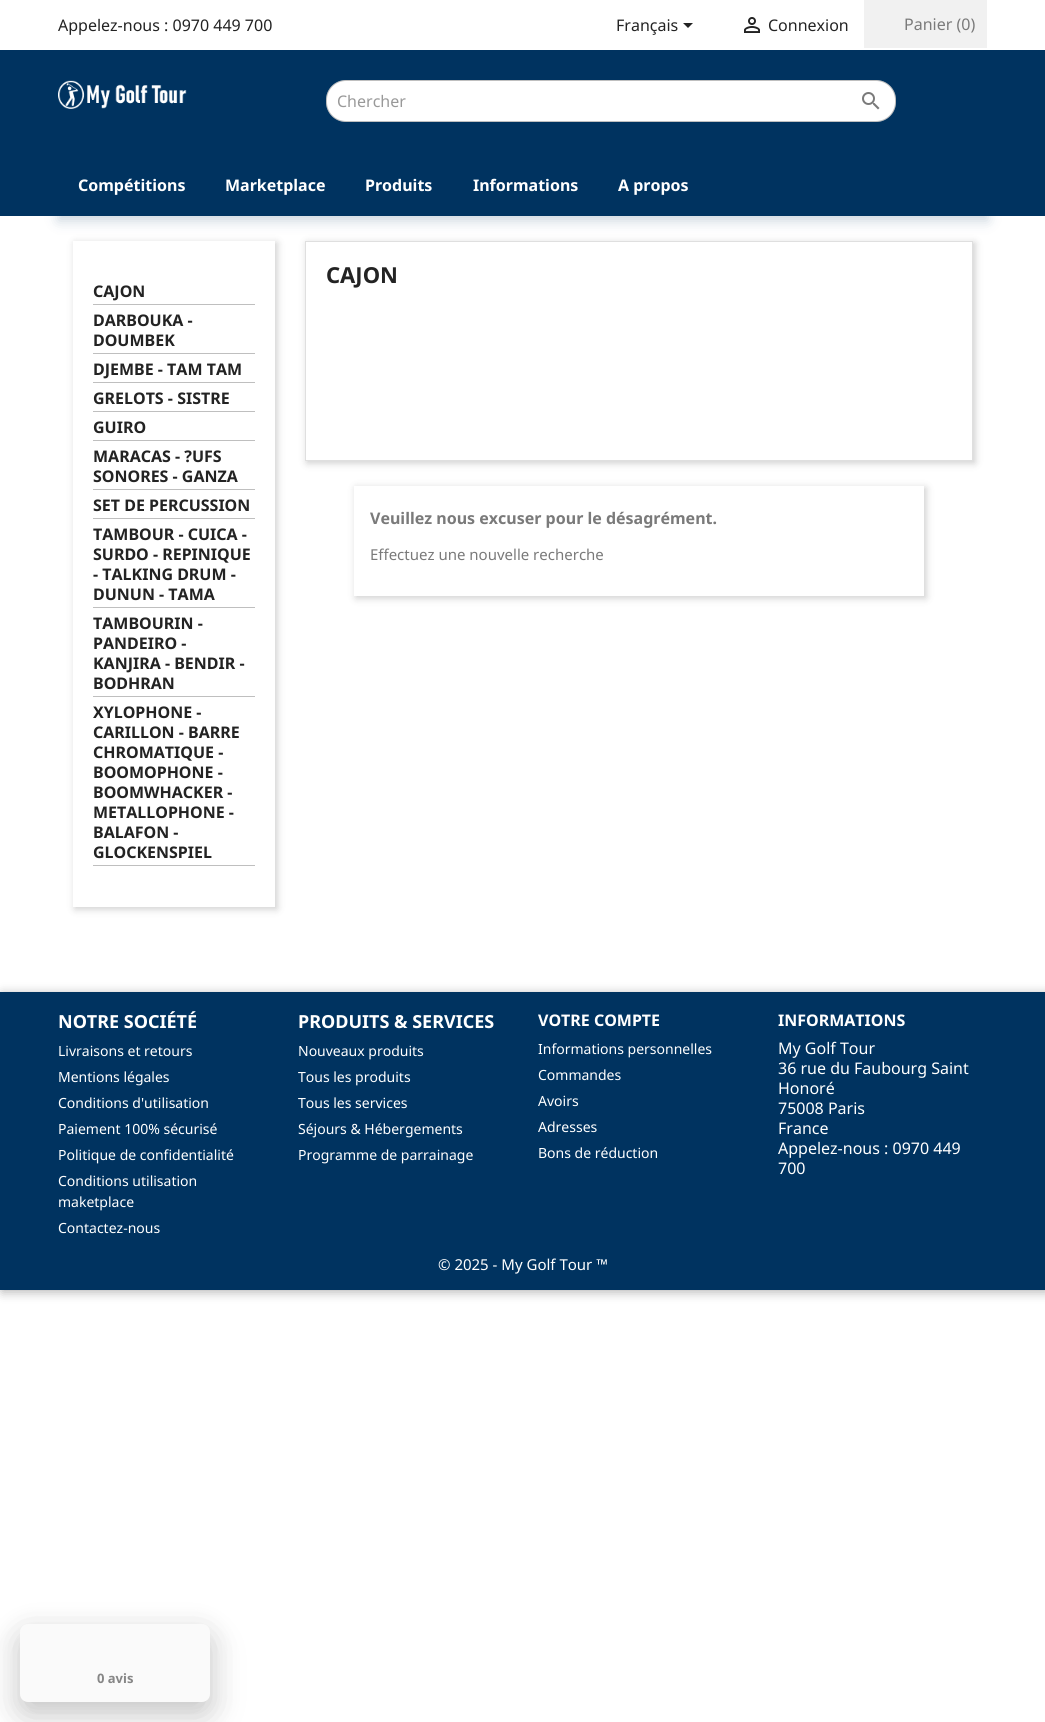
import math
import cairo

surface = cairo.ImageSurface(cairo.FORMAT_RGB24, 1045, 1722)
c = cairo.Context(surface)
options = cairo.FontOptions()
options.set_hint_metrics(cairo.HINT_METRICS_OFF)
options.set_hint_style(cairo.HINT_STYLE_NONE)
c.set_font_options(options)
c.set_miter_limit(4)
def C(code):
 c.set_source_rgb(*(v / 255 for v in bytes.fromhex(code[-6:])))
def F(family, size, italic, bold):
 c.select_font_face(family, cairo.FONT_SLANT_ITALIC if italic else cairo.FONT_SLANT_NORMAL, cairo.FONT_WEIGHT_BOLD if bold else cairo.FONT_WEIGHT_NORMAL)
 c.set_font_size(size)
def T(x, y, s):
 c.move_to(x, y)
 c.show_text(s)
def R(x, y, w, h):
 c.rectangle(x, y, w, h)
 c.fill()
def Q(x, y, w, h, r):
 c.new_sub_path()
 for i, (u, v) in enumerate([(x + w - r, y + h - r), (x + r, y + h - r), (x + r, y + r), (x + w - r, y + r)]):
  c.arc(u, v, r, i * math.pi / 2, (i + 1) * math.pi / 2)
 c.close_path()
def S(x, y, w, h, r, blur, alpha):
 c.push_group_with_content(cairo.CONTENT_ALPHA)
 c.set_operator(cairo.OPERATOR_SOURCE)
 for i in range(15, -16, -2):
  e = blur * i / 6
  if min(w, h) + 2 * e > 0:
   c.set_source_rgba(0, 0, 0, alpha * math.erfc((i - 1) / 8.5) / 2)
   Q(x - e, y - e, w + 2 * e, h + 2 * e, max(0, min(r + e + blur * .6, min(w, h) / 2 + e)))
   c.fill()
 c.mask(c.pop_group())
def I(path, x, y, w, h):
 c.save()
 c.set_source_surface(cairo.ImageSurface.create_from_png(path), x, y)
 c.rectangle(x, y, w, h)
 c.fill()
 c.restore()
C('ffffff')
c.paint()
C('003360')
R(0,50,1045,166)
F('Noto Sans',16,0,0)
C('232323')
T(58,31,'Appelez-nous : 0970 449 700')
T(616,31,'Français')
c.new_path()
c.move_to(683,23)
c.line_to(693,23)
c.line_to(688,28)
c.close_path()
c.fill()
I('1.png',744,17,16,16)
T(768,31,'Connexion')
C('f1f1f1')
R(864,0,123,48)
C('7a7a7a')
T(904,30,'Panier (0)')
I('2.png',58,80,129,29)
C('ffffff')
Q(326,80,570,42,20)
c.fill()
Q(326.5,80.5,569,41,19.5)
c.set_source_rgba(0,0,0,0.25)
c.set_line_width(1)
c.stroke()
C('999999')
T(337,107,'Chercher')
I('3.png',862,92,18,18)
c.save()
c.set_fill_rule(cairo.FILL_RULE_EVEN_ODD)
c.new_path()
c.move_to(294,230)
c.line_to(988,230)
c.line_to(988,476)
c.line_to(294,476)
c.close_path()
c.move_to(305,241)
c.line_to(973,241)
c.line_to(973,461)
c.line_to(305,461)
c.close_path()
c.clip()
C('000000')
S(307,243,668,220,0,4,.2)
c.restore()
c.rectangle(305.5,241.5,667,219)
C('dfdfdf')
c.stroke()
c.save()
c.set_fill_rule(cairo.FILL_RULE_EVEN_ODD)
c.new_path()
c.move_to(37,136)
c.line_to(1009,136)
c.line_to(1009,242)
c.line_to(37,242)
c.close_path()
c.move_to(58,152)
c.line_to(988,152)
c.line_to(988,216)
c.line_to(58,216)
c.close_path()
c.clip()
C('003360')
S(58,157,930,64,0,6.5,.2)
c.restore()
F('Noto Sans',16,0,1)
C('ffffff')
T(78,191,'Compétitions')
T(225,191,'Marketplace')
T(365,191,'Produits')
T(473,191,'Informations')
T(618,191,'A propos')
c.save()
c.set_fill_rule(cairo.FILL_RULE_EVEN_ODD)
c.new_path()
c.move_to(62,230)
c.line_to(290,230)
c.line_to(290,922)
c.line_to(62,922)
c.close_path()
c.move_to(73,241)
c.line_to(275,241)
c.line_to(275,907)
c.line_to(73,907)
c.close_path()
c.clip()
C('000000')
S(75,243,202,666,0,4,.2)
c.restore()
C('bfbfbf')
R(93,304,162,1)
C('232323')
T(93,297,'CAJON')
C('bfbfbf')
R(93,353,162,1)
C('232323')
T(93,326,'DARBOUKA -')
T(93,346,'DOUMBEK')
C('bfbfbf')
R(93,382,162,1)
C('232323')
T(93,375,'DJEMBE - TAM TAM')
C('bfbfbf')
R(93,411,162,1)
C('232323')
T(93,404,'GRELOTS - SISTRE')
C('bfbfbf')
R(93,440,162,1)
C('232323')
T(93,433,'GUIRO')
C('bfbfbf')
R(93,489,162,1)
C('232323')
T(93,462,'MARACAS - ?UFS')
T(93,482,'SONORES - GANZA')
C('bfbfbf')
R(93,518,162,1)
C('232323')
T(93,511,'SET DE PERCUSSION')
C('bfbfbf')
R(93,607,162,1)
C('232323')
T(93,540,'TAMBOUR - CUICA -')
T(93,560,'SURDO - REPINIQUE')
T(93,580,'- TALKING DRUM -')
T(93,600,'DUNUN - TAMA')
C('bfbfbf')
R(93,696,162,1)
C('232323')
T(93,629,'TAMBOURIN -')
T(93,649,'PANDEIRO -')
T(93,669,'KANJIRA - BENDIR -')
T(93,689,'BODHRAN')
C('bfbfbf')
R(93,865,162,1)
C('232323')
T(93,718,'XYLOPHONE -')
T(93,738,'CARILLON - BARRE')
T(93,758,'CHROMATIQUE -')
T(93,778,'BOOMOPHONE -')
T(93,798,'BOOMWHACKER -')
T(93,818,'METALLOPHONE -')
T(93,838,'BALAFON -')
T(93,858,'GLOCKENSPIEL')
F('Noto Sans',22,0,1)
T(326,283,'CAJON')
c.save()
c.set_fill_rule(cairo.FILL_RULE_EVEN_ODD)
c.new_path()
c.move_to(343,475)
c.line_to(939,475)
c.line_to(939,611)
c.line_to(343,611)
c.close_path()
c.move_to(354,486)
c.line_to(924,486)
c.line_to(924,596)
c.line_to(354,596)
c.close_path()
c.clip()
C('000000')
S(356,488,570,110,0,4,.2)
c.restore()
F('Noto Sans',16,0,1)
C('7a7a7a')
T(370,524,'Veuillez nous excuser pour le désagrément.')
F('Noto Sans',15,0,0)
T(370,560,'Effectuez une nouvelle recherche')
C('000000')
S(2,994,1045,298,0,5.5,.3)
C('003360')
R(0,992,1045,298)
F('Noto Sans',18,0,1)
C('ffffff')
T(58,1028,'NOTRE SOCIÉTÉ')
F('Noto Sans',14,0,0)
T(58,1056,'Livraisons et retours')
T(58,1082,'Mentions légales')
T(58,1108,'Conditions d\'utilisation')
T(58,1134,'Paiement 100% sécurisé')
T(58,1160,'Politique de confidentialité')
T(58,1186,'Conditions utilisation')
T(58,1207,'maketplace')
T(58,1233,'Contactez-nous')
F('Noto Sans',18,0,1)
T(298,1028,'PRODUITS & SERVICES')
F('Noto Sans',14,0,0)
T(298,1056,'Nouveaux produits')
T(298,1082,'Tous les produits')
T(298,1108,'Tous les services')
T(298,1134,'Séjours & Hébergements')
T(298,1160,'Programme de parrainage')
F('Noto Sans',16,0,1)
T(538,1026,'VOTRE COMPTE')
F('Noto Sans',14,0,0)
T(538,1054,'Informations personnelles')
T(538,1080,'Commandes')
T(538,1106,'Avoirs')
T(538,1132,'Adresses')
T(538,1158,'Bons de réduction')
F('Noto Sans',16,0,1)
T(778,1026,'INFORMATIONS')
F('Noto Sans',16,0,0)
T(778,1054,'My Golf Tour')
T(778,1074,'36 rue du Faubourg Saint')
T(778,1094,'Honoré')
T(778,1114,'75008 Paris')
T(778,1134,'France')
T(778,1154,'Appelez-nous : 0970 449')
T(778,1174,'700')
F('Noto Sans',15,0,0)
T(438,1270,'© 2025 - My Golf Tour ™')
C('000000')
S(20,1634,190,78,8,15,.15)
S(20,1639,190,78,8,20,.1)
C('fafafa')
Q(20,1624,190,78,8)
c.fill()
F('Noto Sans',13,0,1)
C('868686')
T(97,1683,'0 avis')
surface.write_to_png('o.png')
